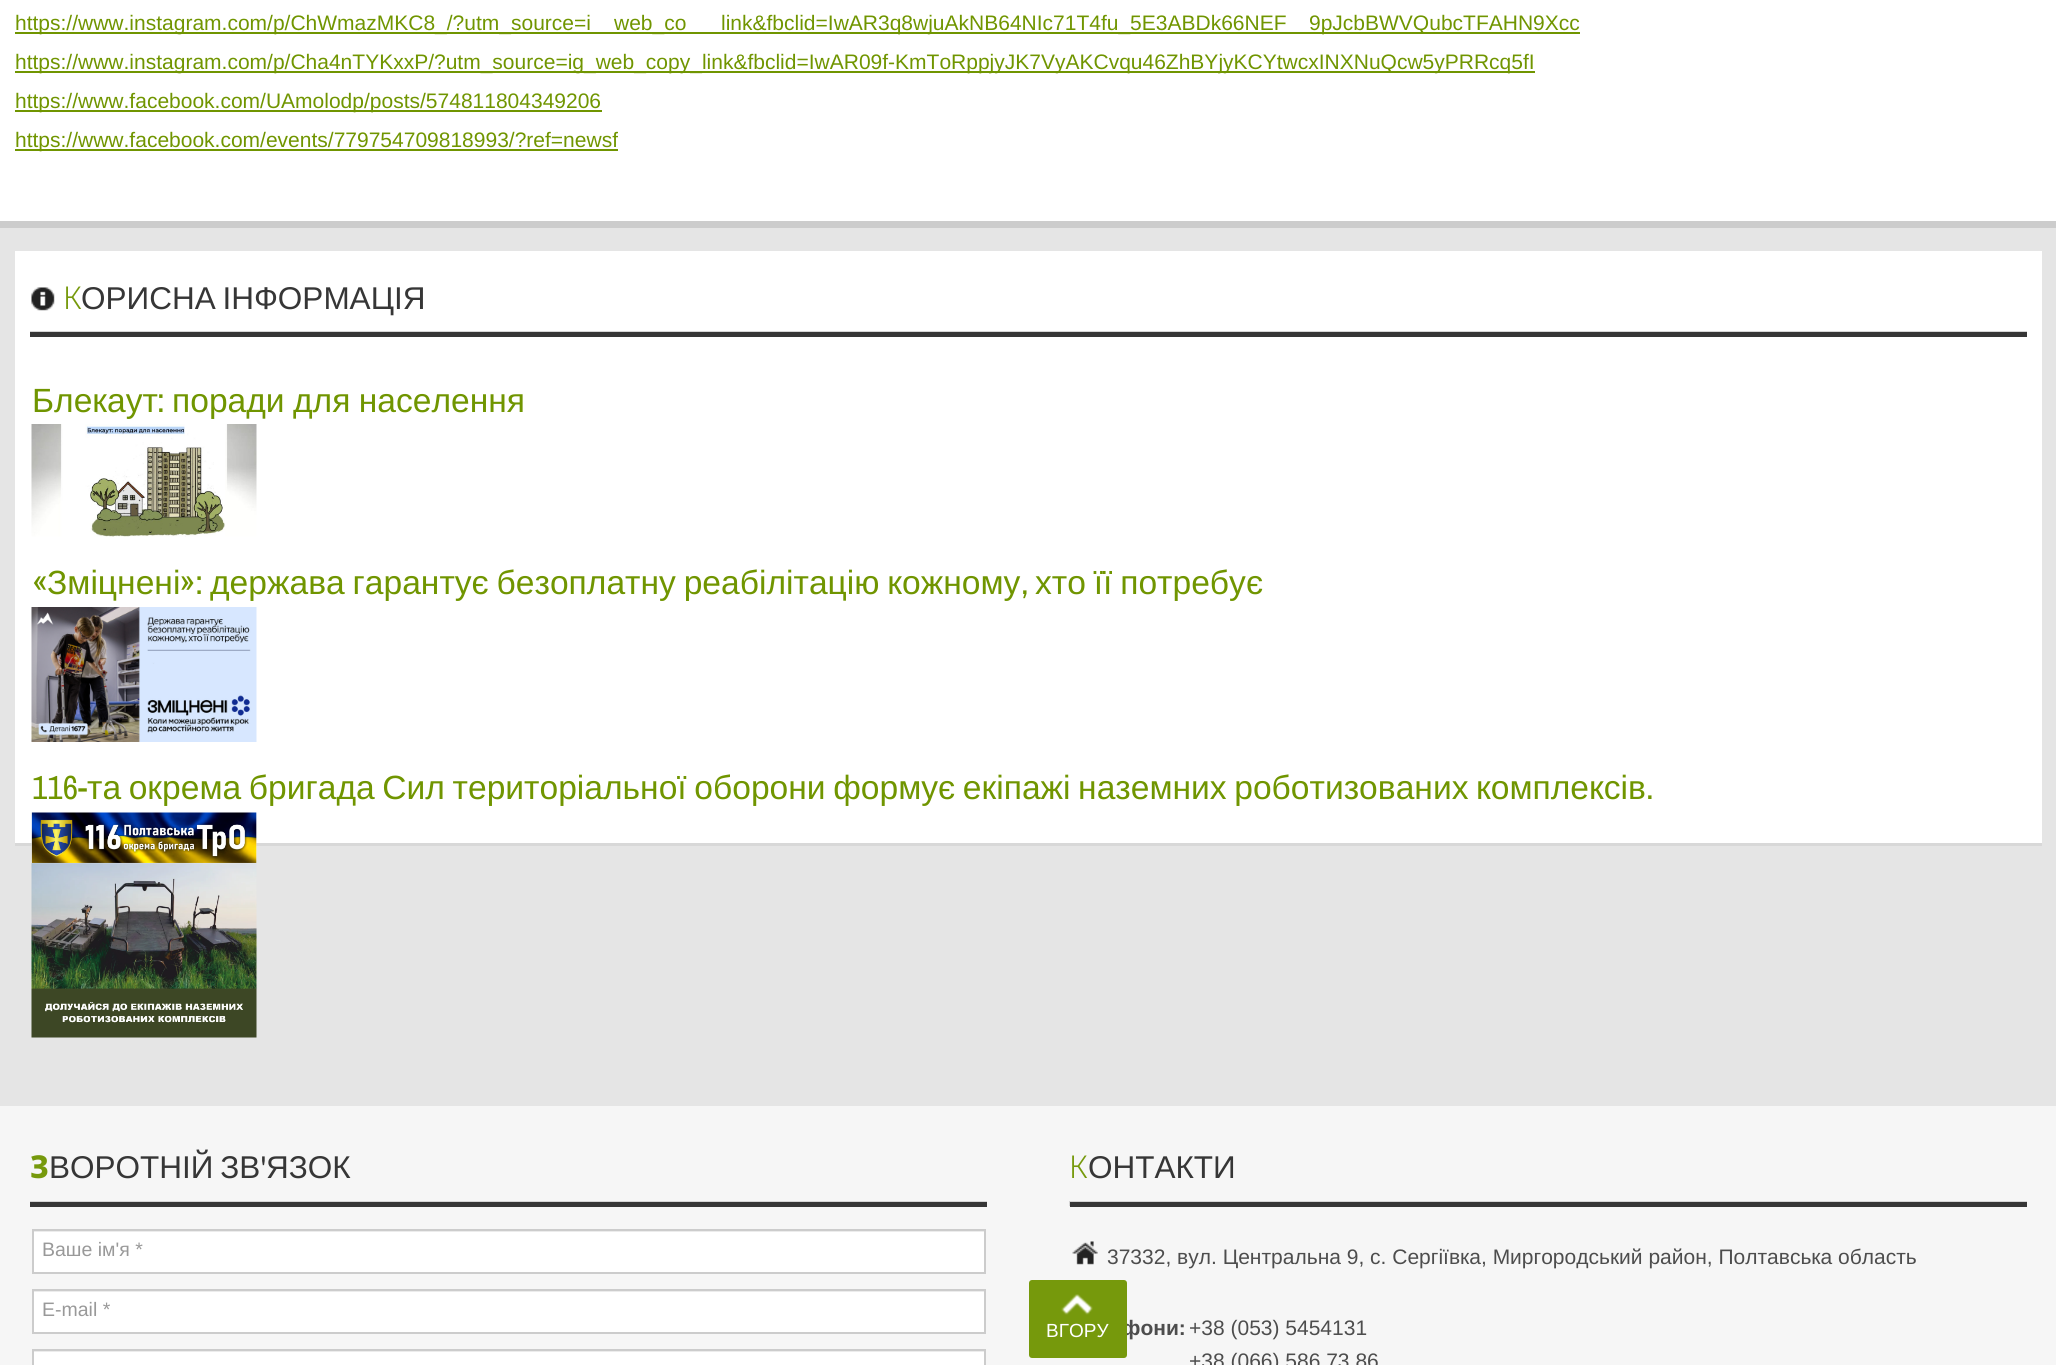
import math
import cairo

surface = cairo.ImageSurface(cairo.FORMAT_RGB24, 2056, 1365)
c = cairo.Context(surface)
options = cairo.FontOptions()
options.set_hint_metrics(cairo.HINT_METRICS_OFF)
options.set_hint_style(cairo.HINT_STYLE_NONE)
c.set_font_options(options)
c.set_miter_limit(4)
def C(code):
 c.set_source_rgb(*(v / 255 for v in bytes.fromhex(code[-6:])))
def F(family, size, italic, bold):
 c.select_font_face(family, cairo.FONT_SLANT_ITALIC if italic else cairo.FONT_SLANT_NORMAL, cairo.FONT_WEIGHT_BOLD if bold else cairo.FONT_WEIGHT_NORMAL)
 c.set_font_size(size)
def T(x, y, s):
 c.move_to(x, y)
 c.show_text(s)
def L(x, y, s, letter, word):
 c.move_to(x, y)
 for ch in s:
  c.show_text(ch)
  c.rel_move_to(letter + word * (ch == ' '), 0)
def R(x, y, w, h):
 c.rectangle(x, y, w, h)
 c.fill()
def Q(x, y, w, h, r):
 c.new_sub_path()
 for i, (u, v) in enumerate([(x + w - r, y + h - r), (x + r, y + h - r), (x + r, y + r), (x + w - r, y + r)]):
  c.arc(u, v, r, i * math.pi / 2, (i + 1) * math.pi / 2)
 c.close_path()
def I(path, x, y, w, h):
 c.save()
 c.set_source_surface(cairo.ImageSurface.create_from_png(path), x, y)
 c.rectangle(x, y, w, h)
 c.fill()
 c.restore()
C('e5e5e5')
c.paint()
C('ffffff')
R(0,0,2056,221)
C('cccccc')
R(0,221,2056,7)
C('709500')
R(15,32,1565,2)
F('Liberation Sans',21,0,0)
T(15,30,'https://www.instagram.com/p/ChWmazMKC8_/?utm_source=i')
T(614,30,'web_co')
T(721,30,'link&fbclid=IwAR3q8wjuAkNB64NIc71T4fu_5E3ABDk66NEF')
T(1309,30,'9pJcbBWVQubcTFAHN9Xcc')
R(15,71,1520,2)
T(15,69,'https://www.instagram.com/p/Cha4nTYKxxP/?utm_source=ig_web_copy_link&fbclid=IwAR09f-KmToRppjyJK7VyAKCvqu46ZhBYjyKCYtwcxINXNuQcw5yPRRcq5fI')
R(15,110,587,2)
T(15,108,'https://www.facebook.com/UAmolodp/posts/574811804349206')
R(15,149,603,2)
T(15,147,'https://www.facebook.com/events/779754709818993/?ref=newsf')
C('ffffff')
R(15,251,2027,592)
C('d8d8d8')
R(15,843,2027,3)
C('d5d5d5')
R(30,331,1997,1)
C('363636')
R(30,332,1997,5)
I('1.png',31,287,24,24)
F('Noto Sans Light',31.5,0,0)
C('76990c')
T(63,309,'К')
F('Liberation Sans',31.5,0,0)
C('363636')
L(81,309,'ОРИСНА ІНФОРМАЦІЯ',0,-2)
F('Liberation Sans',33.6,0,0)
C('709500')
T(32,412,'Блекаут')
F('Archivo Narrow',33.6,0,0)
T(157,412,':')
F('Liberation Sans',33.6,0,0)
L(172,412,'поради для населення',0,-1)
I('2.png',31,424,226,113)
F('Archivo Narrow',33.6,0,0)
T(32,594,'«')
F('Liberation Sans',33.6,0,0)
T(47,594,'Зміцнені')
F('Archivo Narrow',33.6,0,0)
T(180,594,'»:')
F('Liberation Sans',33.6,0,0)
L(210,594,'держава гарантує безоплатну реабілітацію кожному',0,-1.5)
F('Archivo Narrow',33.6,0,0)
T(1021,594,',')
F('Liberation Sans',33.6,0,0)
L(1035,594,'хто її потребує',0,-1.5)
I('3.png',31,607,226,135)
F('Archivo Narrow',33.6,0,0)
T(32,799,'116-')
F('Liberation Sans',33.6,0,0)
L(87,799,'та окрема бригада Сил територіальної оборони формує екіпажі наземних роботизованих комплексів',0,-1.75)
F('Archivo Narrow',33.6,0,0)
T(1646,799,'.')
I('4.png',31,812,226,226)
C('f6f6f6')
R(0,1106,2056,259)
C('d5d5d5')
R(30,1201,957,1)
C('363636')
R(30,1202,957,5)
F('Noto Sans ExtraBold',31.5,0,0)
C('76990c')
T(30,1178,'З')
F('Liberation Sans',31.5,0,0)
C('363636')
L(49,1178,'ВОРОТНІЙ ЗВ',0,-2)
F('Archivo Narrow',31.5,0,0)
T(261,1178,'\'')
F('Liberation Sans',31.5,0,0)
T(266,1178,'ЯЗОК')
C('ffffff')
R(34,1232,950,40)
C('ececec')
R(33,1231,951,1)
c.rectangle(33,1230,952,43)
C('cccccc')
c.stroke()
F('Liberation Sans',19.5,0,0)
C('999999')
T(42,1256,'Ваше ім\'я *')
C('ffffff')
R(34,1292,950,40)
C('ececec')
R(33,1291,951,1)
c.rectangle(33,1290,952,43)
C('cccccc')
c.stroke()
C('999999')
T(42,1316,'E-mail *')
C('ffffff')
R(34,1352,950,13)
C('ececec')
R(33,1351,951,1)
c.rectangle(33,1350,952,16)
C('cccccc')
c.stroke()
C('d5d5d5')
R(1069,1201,958,5)
C('363636')
R(1070,1202,957,5)
F('Noto Sans Light',31.5,0,0)
C('76990c')
T(1069,1178,'К')
F('Liberation Sans',31.5,0,0)
C('363636')
T(1088,1178,'ОНТАКТИ')
I('5.png',1072,1241,26,24)
F('Liberation Sans',21,0,0)
C('4d4d4d')
T(1107,1264,'37332, вул. Центральна 9, с. Сергіївка, Миргородський район, Полтавська область')
F('Liberation Sans',21,0,1)
T(1122,1335,'фони:')
F('Liberation Sans',21,0,0)
T(1189,1335,'+38 (053) 5454131')
T(1189,1368,'+38 (066) 586 73 86')
C('76990c')
Q(1029,1280,98,78,3)
c.fill()
I('6.png',1061,1294,32,21)
F('Liberation Sans',19,0,0)
C('ffffff')
T(1046,1337,'ВГОРУ')
surface.write_to_png('o.png')
